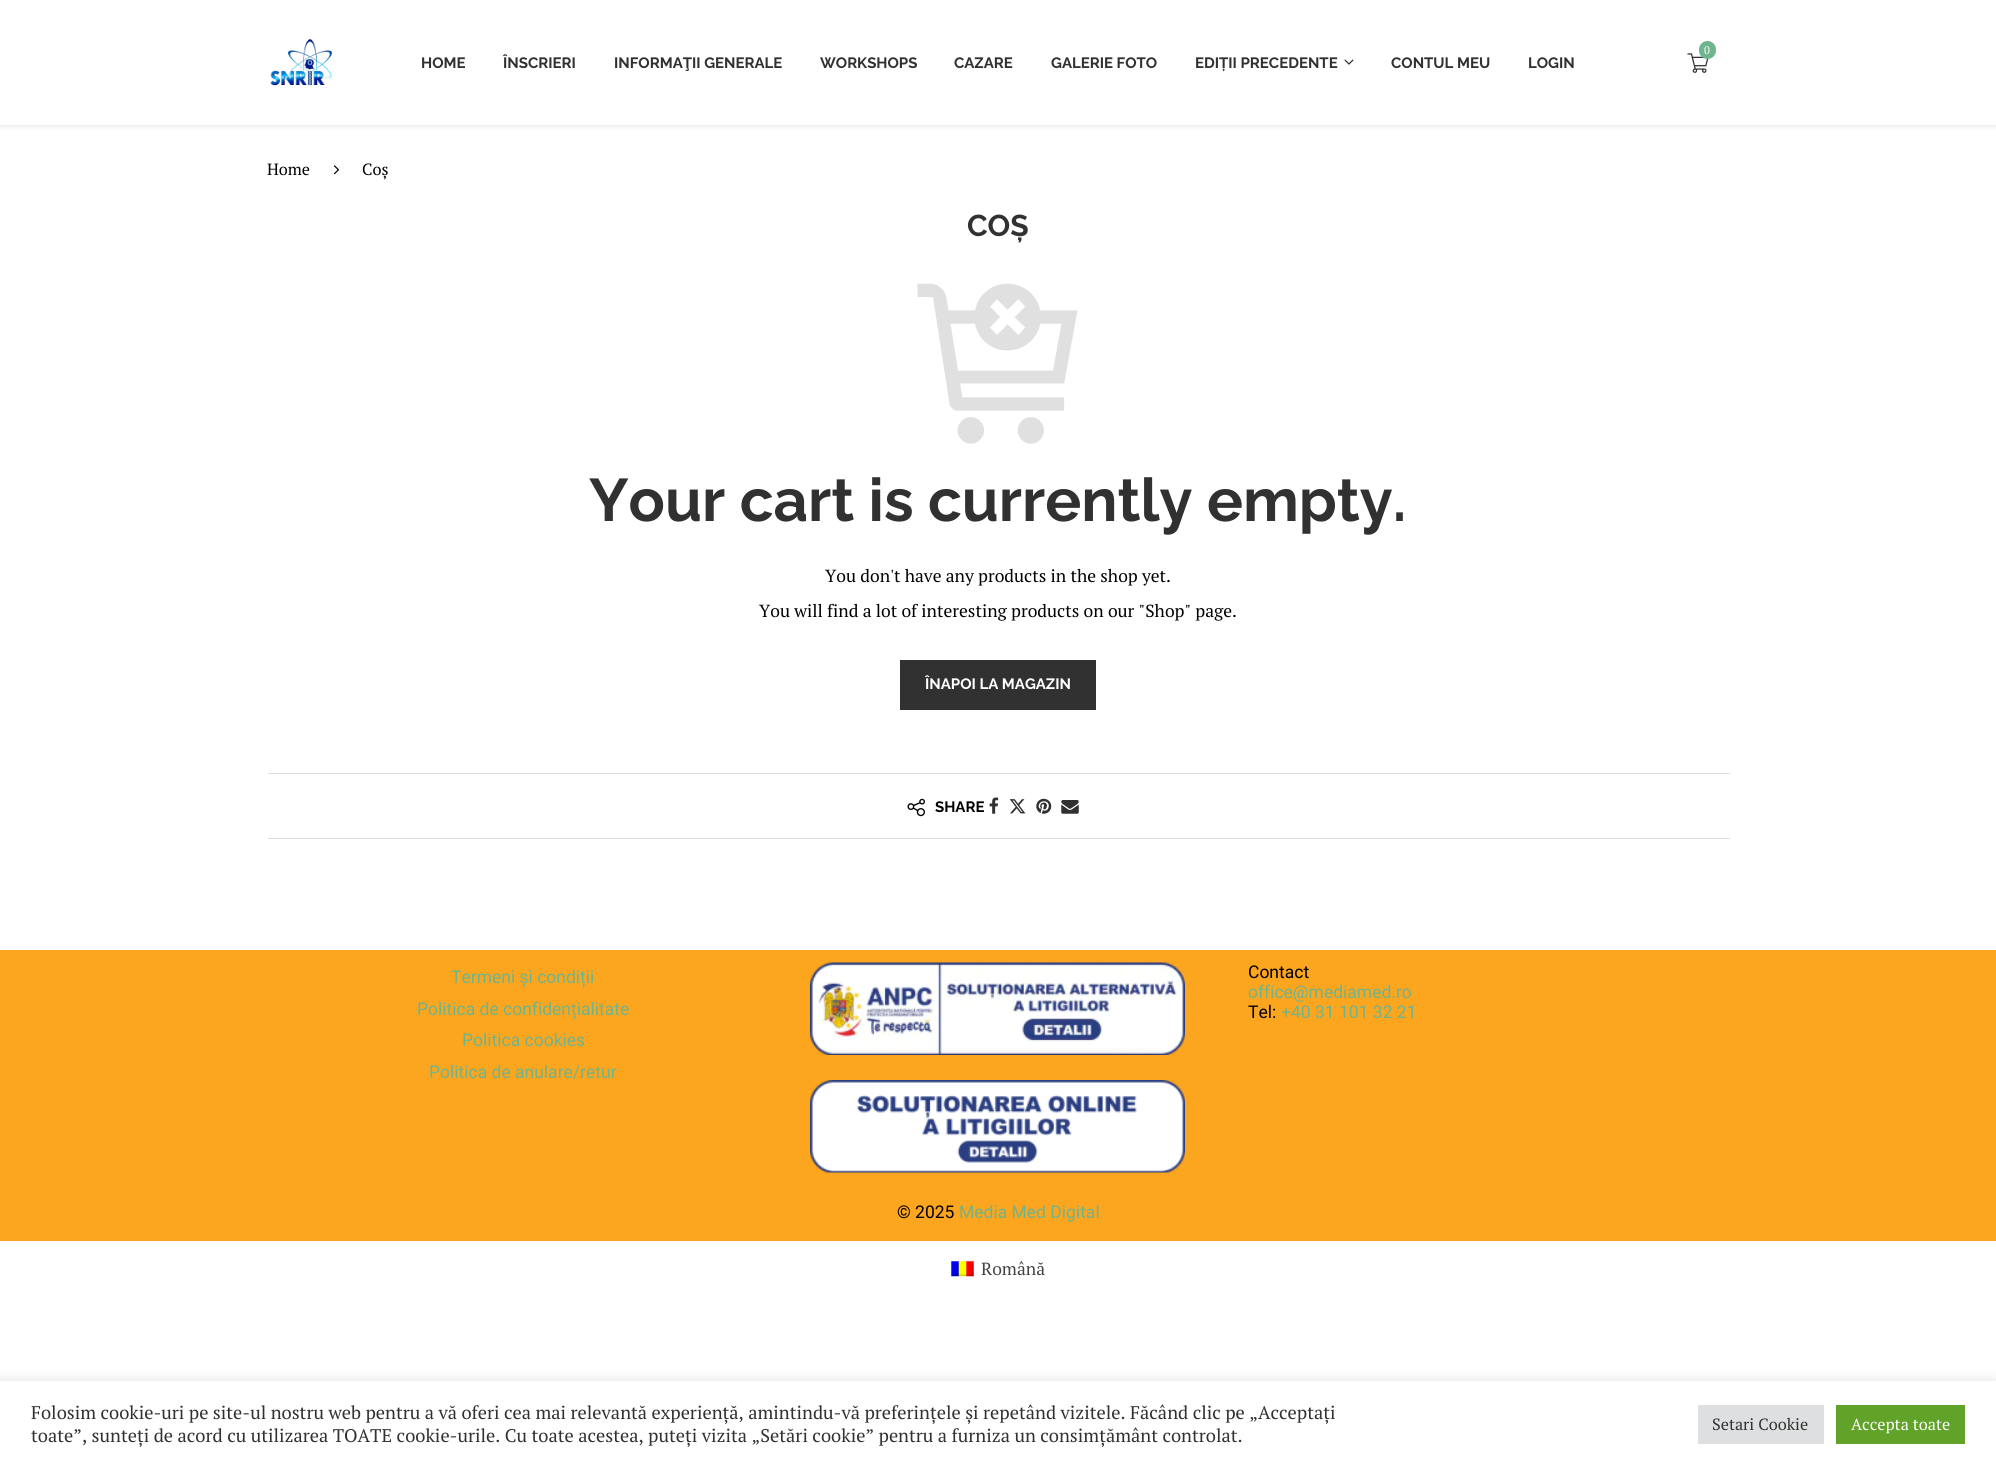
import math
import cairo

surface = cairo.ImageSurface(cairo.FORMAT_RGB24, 1996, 1467)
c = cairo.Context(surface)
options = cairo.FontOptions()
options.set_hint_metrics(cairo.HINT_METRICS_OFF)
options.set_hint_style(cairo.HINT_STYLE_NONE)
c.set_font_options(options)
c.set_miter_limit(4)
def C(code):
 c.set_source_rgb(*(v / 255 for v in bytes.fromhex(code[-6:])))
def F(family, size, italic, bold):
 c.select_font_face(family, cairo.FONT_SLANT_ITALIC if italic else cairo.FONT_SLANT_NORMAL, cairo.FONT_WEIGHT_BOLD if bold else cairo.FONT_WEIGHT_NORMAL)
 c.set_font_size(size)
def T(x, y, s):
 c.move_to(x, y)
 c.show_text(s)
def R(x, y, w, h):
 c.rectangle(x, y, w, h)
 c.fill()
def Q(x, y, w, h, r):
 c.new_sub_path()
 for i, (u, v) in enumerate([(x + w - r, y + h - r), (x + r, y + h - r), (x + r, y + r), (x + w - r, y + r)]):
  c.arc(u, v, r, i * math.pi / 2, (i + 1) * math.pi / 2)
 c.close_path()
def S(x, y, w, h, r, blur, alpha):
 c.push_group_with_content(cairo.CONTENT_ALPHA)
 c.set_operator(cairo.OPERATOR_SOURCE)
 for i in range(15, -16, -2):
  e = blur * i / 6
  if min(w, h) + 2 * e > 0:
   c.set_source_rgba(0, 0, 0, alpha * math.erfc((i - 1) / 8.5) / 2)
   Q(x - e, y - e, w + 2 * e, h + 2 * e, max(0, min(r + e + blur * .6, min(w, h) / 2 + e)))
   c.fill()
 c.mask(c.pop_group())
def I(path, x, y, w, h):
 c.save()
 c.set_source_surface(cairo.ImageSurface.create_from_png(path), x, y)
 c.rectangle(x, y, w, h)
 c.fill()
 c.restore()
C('ffffff')
c.paint()
c.save()
c.rectangle(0,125,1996,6)
c.clip()
C('bebebe')
S(0,1,1996,125,0,3,.46)
c.restore()
I('1.png',270,39,63,48)
I('2.png',1687,53,22,20)
C('6eb48c')
Q(1699,41,17,18,8.5)
c.fill()
F('PT Serif',11,0,0)
C('ffffff')
T(1704,54,'0')
F('Raleway',15,0,1)
C('313131')
T(421,68,'HOME')
T(503,68,'ÎNSCRIERI')
T(614,68,'INFORMAŢII GENERALE')
T(820,68,'WORKSHOPS')
T(954,68,'CAZARE')
T(1051,68,'GALERIE FOTO')
T(1195,68,'EDIȚII PRECEDENTE')
I('3.png',1344,59,10,6)
T(1391,68,'CONTUL MEU')
T(1528,68,'LOGIN')
F('PT Serif',16.25,0,0)
C('000000')
T(267,175,'Home')
I('4.png',333,165,7,10)
T(362,175,'Coș')
F('Raleway',30,0,1)
C('313131')
T(967,236,'COȘ')
I('5.png',917,283,161,161)
F('Raleway',60,0,1)
T(589,521,'Your cart is currently empty.')
F('PT Serif',17.5,0,0)
C('000000')
T(825,582,'You don\'t have any products in the shop yet.')
T(759,617,'You will find a lot of interesting products on our "Shop" page.')
C('313131')
R(900,660,196,50)
F('Raleway',15,0,1)
C('ffffff')
T(925,689,'ÎNAPOI LA MAGAZIN')
C('dedede')
R(268,773,1462,1)
R(268,838,1462,1)
I('6.png',907,798,18,19)
C('000000')
T(935,812,'SHARE')
I('7.png',989,797,10,17)
I('8.png',1009,799,17,15)
I('9.png',1036,798,16,16)
I('10.png',1061,800,18,14)
C('fca51f')
R(0,950,1996,291)
F('Roboto',17.5,0,0)
C('6eb48c')
T(451,983,'Termeni și condiții')
T(417,1015,'Politica de confidențialitate')
T(462,1046,'Politica cookies')
T(429,1078,'Politica de anulare/retur')
I('11.png',810,962,375,93)
I('12.png',810,1080,375,93)
C('000000')
T(1248,978,'Contact')
C('6eb48c')
T(1248,998,'office@mediamed.ro')
C('000000')
T(1248,1018,'Tel:')
C('6eb48c')
T(1281,1018,'+40 31 101 32 21')
C('000000')
T(897,1218,'© 2025')
C('6eb48c')
T(959,1218,'Media Med Digital')
I('13.png',951,1261,23,16)
F('PT Serif',17.5,0,0)
C('444444')
T(981,1275,'Română')
C('acabab')
S(0,1380,1996,86,0,6,.3)
C('ffffff')
R(0,1381,1996,86)
F('PT Serif',18.33,0,0)
C('313131')
T(31,1419,'Folosim cookie-uri pe site-ul nostru web pentru a vă oferi cea mai relevantă experiență, amintindu-vă preferințele și repetând vizitele. Făcând clic pe „Acceptați')
T(31,1442,'toate”, sunteți de acord cu utilizarea TOATE cookie-urile. Cu toate acestea, puteți vizita „Setări cookie” pentru a furniza un consimțământ controlat.')
C('dedfe0')
R(1698,1405,126,39)
F('PT Serif',16.25,0,0)
C('313131')
T(1712,1430,'Setari Cookie')
C('61a229')
R(1836,1405,129,39)
C('ffffff')
T(1851,1430,'Accepta toate')
surface.write_to_png('o.png')
